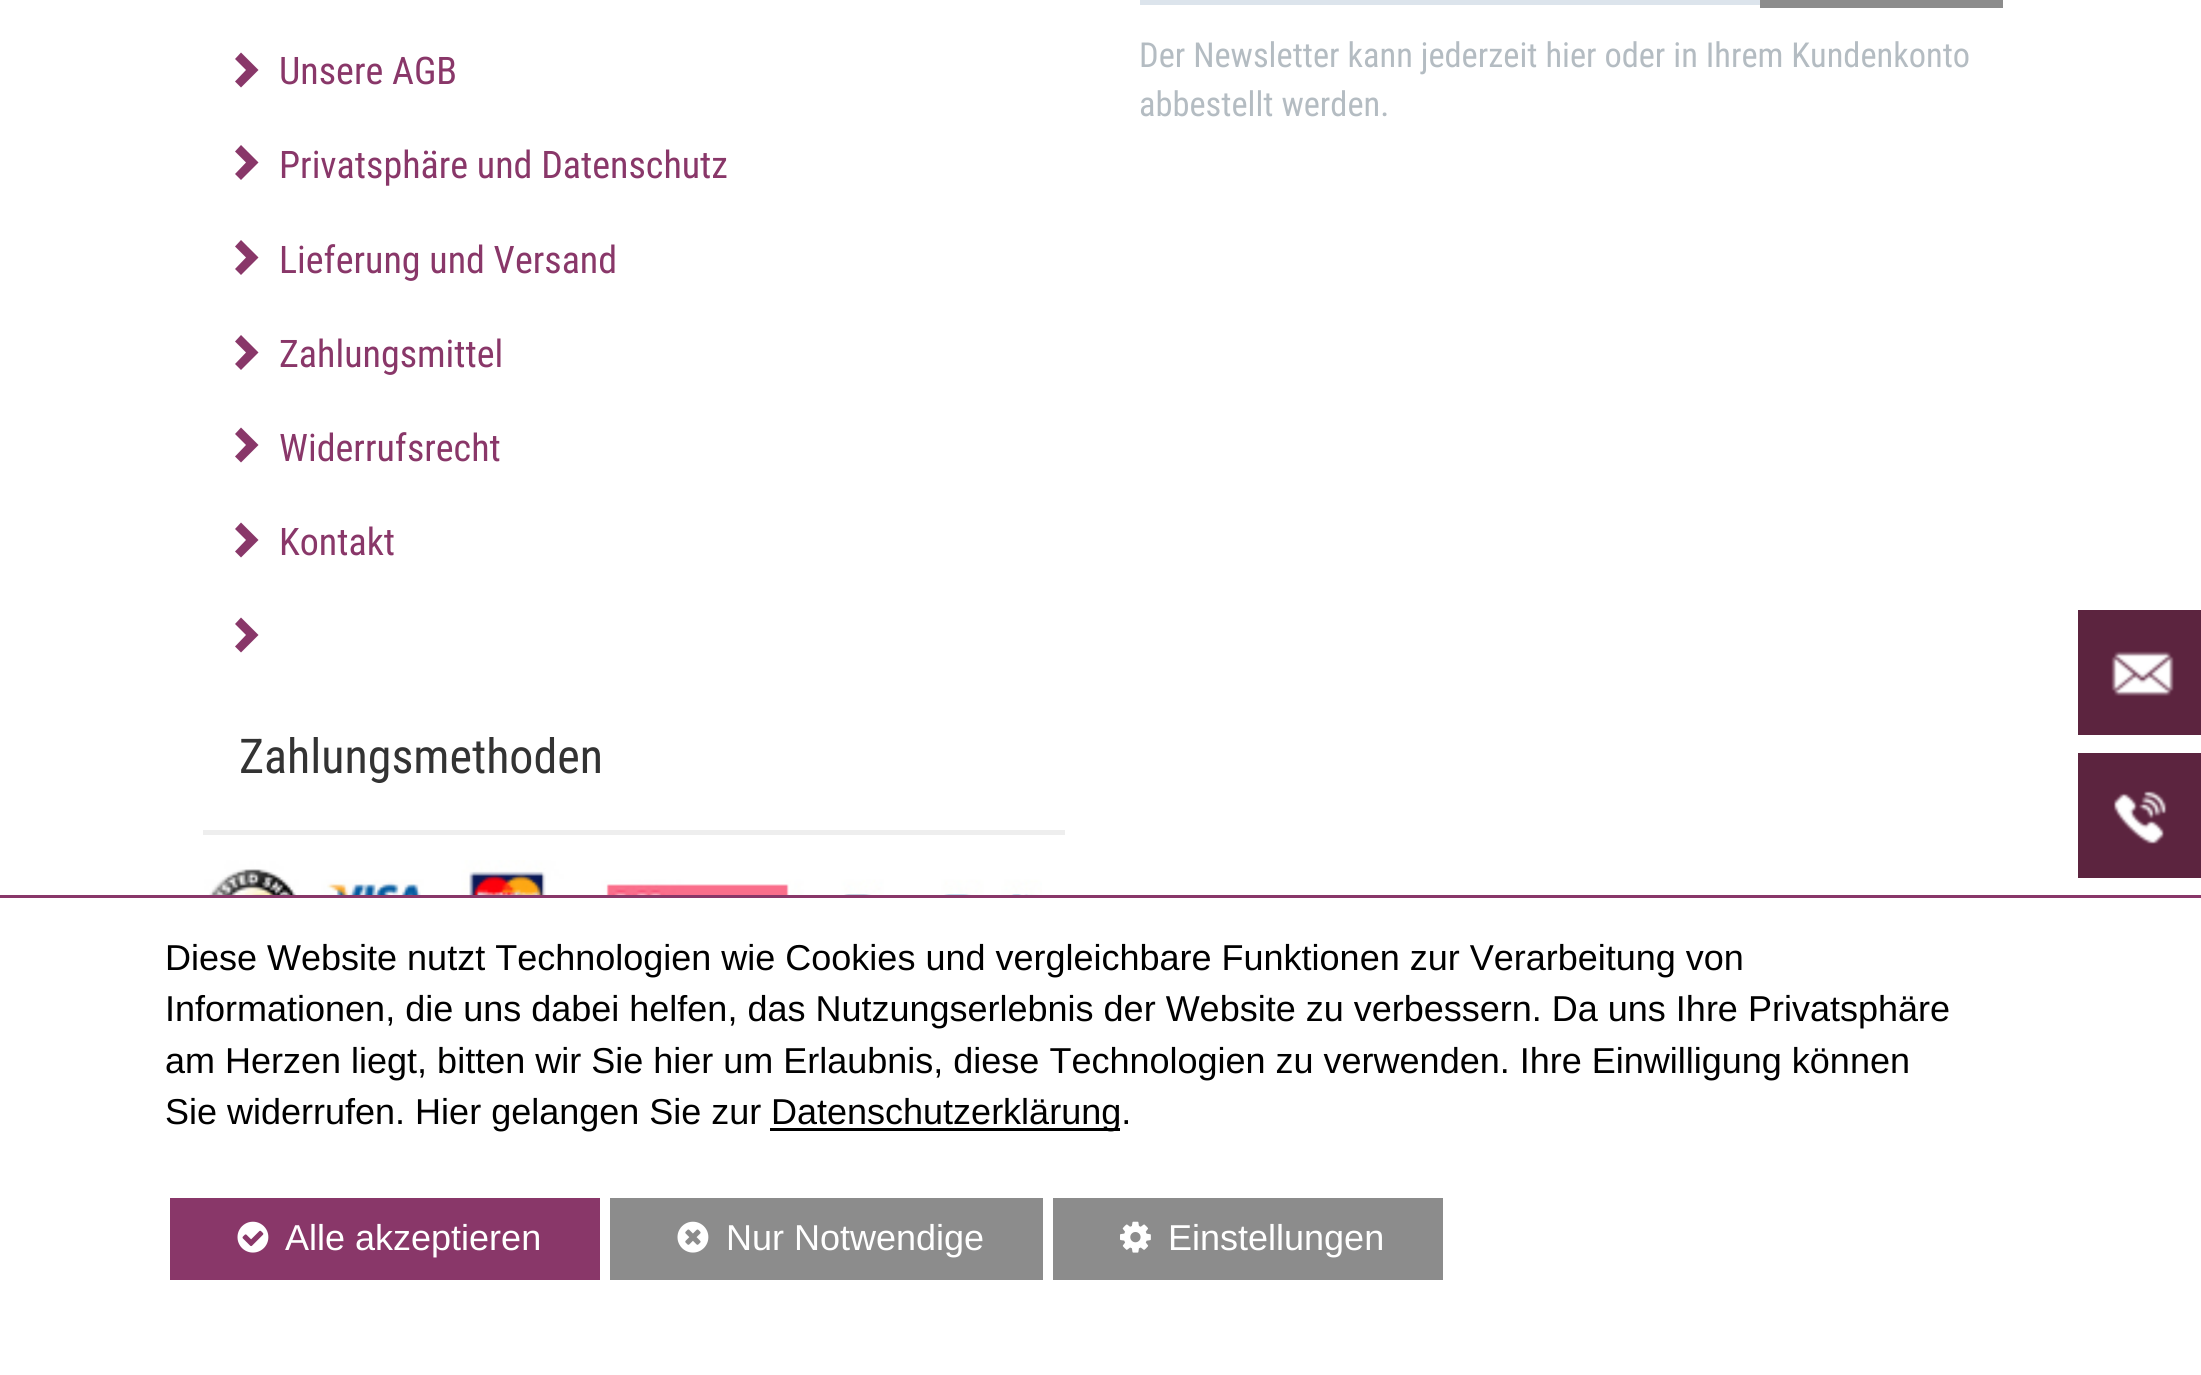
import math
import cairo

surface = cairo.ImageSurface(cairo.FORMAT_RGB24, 2201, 1375)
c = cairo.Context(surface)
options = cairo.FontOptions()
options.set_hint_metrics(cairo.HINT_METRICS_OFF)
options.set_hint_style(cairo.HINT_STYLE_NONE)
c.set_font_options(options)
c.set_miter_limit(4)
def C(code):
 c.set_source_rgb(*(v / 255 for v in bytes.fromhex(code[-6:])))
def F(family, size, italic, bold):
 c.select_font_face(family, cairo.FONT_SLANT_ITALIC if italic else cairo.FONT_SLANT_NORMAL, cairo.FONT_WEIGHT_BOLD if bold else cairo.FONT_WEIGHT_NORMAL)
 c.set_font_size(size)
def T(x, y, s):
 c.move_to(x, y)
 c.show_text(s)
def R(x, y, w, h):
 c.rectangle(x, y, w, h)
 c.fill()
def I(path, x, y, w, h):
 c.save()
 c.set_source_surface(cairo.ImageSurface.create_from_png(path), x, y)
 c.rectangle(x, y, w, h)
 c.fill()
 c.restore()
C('ffffff')
c.paint()
C('893769')
c.new_path()
c.move_to(258.5,70)
c.line_to(241,87.5)
c.line_to(235,81.5)
c.line_to(246,70)
c.line_to(235,59)
c.line_to(241,52.5)
c.close_path()
c.fill()
F('Roboto Condensed',38,0,0)
T(279,84,'Unsere AGB')
c.new_path()
c.move_to(258.5,162.5)
c.line_to(241,180)
c.line_to(235,174)
c.line_to(246,162.5)
c.line_to(235,151.5)
c.line_to(241,145)
c.close_path()
c.fill()
T(279,178,'Privatsphäre und Datenschutz')
c.new_path()
c.move_to(258.5,257.5)
c.line_to(241,275)
c.line_to(235,269)
c.line_to(246,257.5)
c.line_to(235,246.5)
c.line_to(241,240)
c.close_path()
c.fill()
T(279,273,'Lieferung und Versand')
c.new_path()
c.move_to(258.5,352.5)
c.line_to(241,370)
c.line_to(235,364)
c.line_to(246,352.5)
c.line_to(235,341.5)
c.line_to(241,335)
c.close_path()
c.fill()
T(279,367,'Zahlungsmittel')
c.new_path()
c.move_to(258.5,445)
c.line_to(241,462.5)
c.line_to(235,456.5)
c.line_to(246,445)
c.line_to(235,434)
c.line_to(241,427.5)
c.close_path()
c.fill()
T(279,461,'Widerrufsrecht')
c.new_path()
c.move_to(258.5,540)
c.line_to(241,557.5)
c.line_to(235,551.5)
c.line_to(246,540)
c.line_to(235,529)
c.line_to(241,522.5)
c.close_path()
c.fill()
T(279,555,'Kontakt')
c.new_path()
c.move_to(258.5,635)
c.line_to(241,652.5)
c.line_to(235,646.5)
c.line_to(246,635)
c.line_to(235,624)
c.line_to(241,617.5)
c.close_path()
c.fill()
c.rectangle(1142.5,-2.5,618,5)
C('dce4ec')
c.set_line_width(5)
c.stroke()
C('8c8c8c')
R(1760,0,243,8)
F('Roboto Condensed',34.4,0,0)
C('b4bcc2')
T(1139,67,'Der Newsletter kann jederzeit hier oder in Ihrem Kundenkonto')
T(1139,116,'abbestellt werden.')
C('eeeeee')
R(203,830,862,5)
F('Roboto Condensed',48,0,0)
C('333333')
T(239,773,'Zahlungsmethoden')
I('1.png',202,860,840,35)
C('5c243f')
R(2078,610,123,125)
I('2.png',2111,651,63,45)
R(2078,753,123,125)
I('3.png',2113,791,54,53)
C('893769')
R(0,895,2201,3)
F('Liberation Sans',36,0,0)
C('000000')
T(165,970,'Diese Website nutzt Technologien wie Cookies und vergleichbare Funktionen zur Verarbeitung von')
T(165,1021,'Informationen, die uns dabei helfen, das Nutzungserlebnis der Website zu verbessern. Da uns Ihre Privatsphäre')
T(165,1073,'am Herzen liegt, bitten wir Sie hier um Erlaubnis, diese Technologien zu verwenden. Ihre Einwilligung können')
T(165,1124,'Sie widerrufen. Hier gelangen Sie zur')
R(770,1128,350,3)
T(771,1124,'Datenschutzerklärung.')
C('893769')
R(170,1198,430,82)
I('4.png',237,1221,32,32)
C('ffffff')
T(285,1250,'Alle akzeptieren')
C('8c8c8c')
R(610,1198,433,82)
I('5.png',677,1221,32,32)
C('ffffff')
T(726,1250,'Nur Notwendige')
C('8c8c8c')
R(1053,1198,390,82)
I('6.png',1120,1221,31,32)
C('ffffff')
T(1168,1250,'Einstellungen')
surface.write_to_png('o.png')
